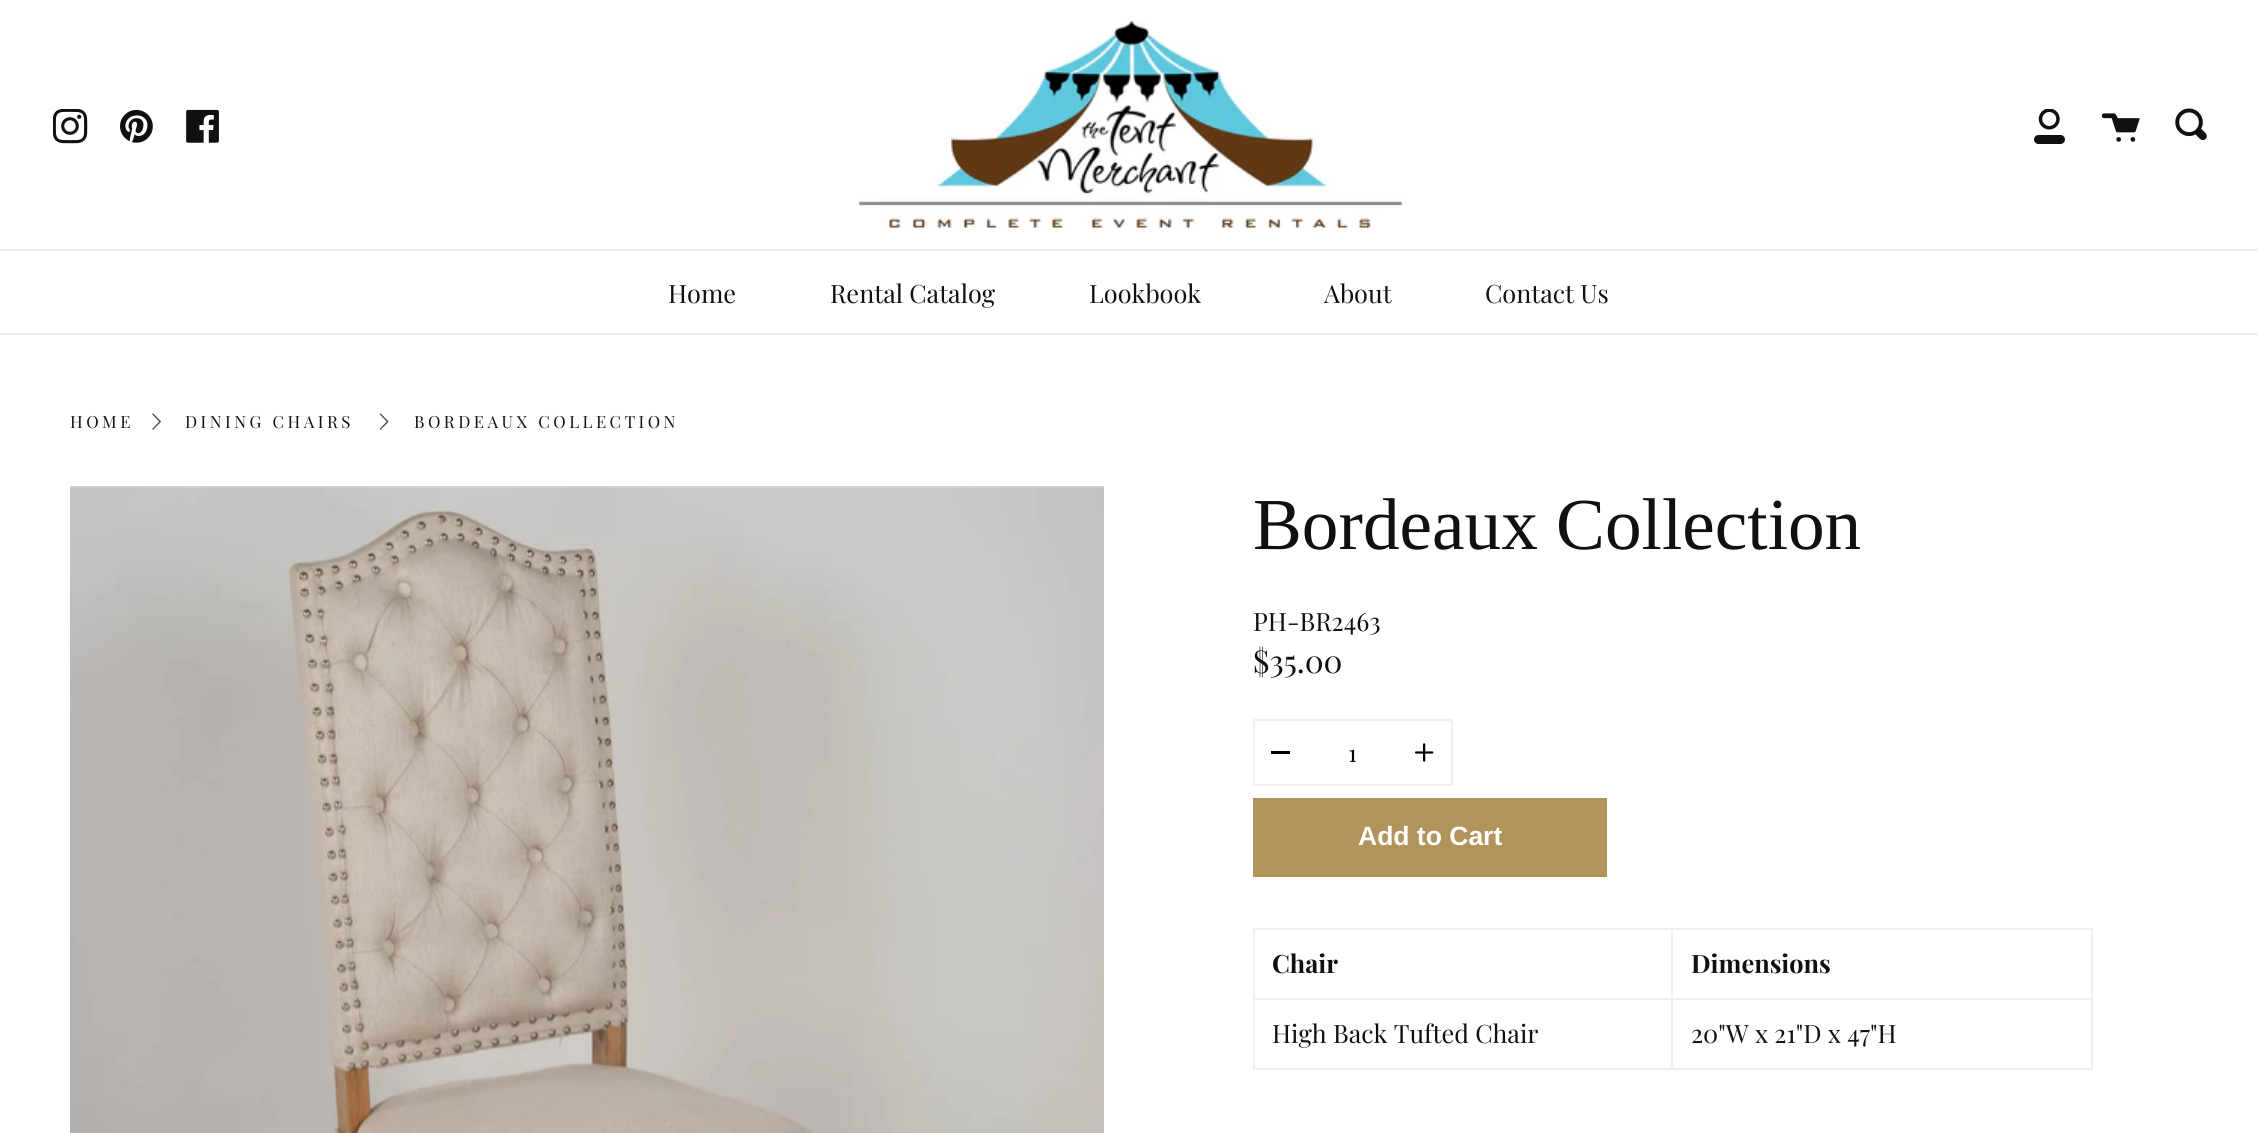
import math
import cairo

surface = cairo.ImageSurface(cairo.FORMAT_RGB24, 2258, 1133)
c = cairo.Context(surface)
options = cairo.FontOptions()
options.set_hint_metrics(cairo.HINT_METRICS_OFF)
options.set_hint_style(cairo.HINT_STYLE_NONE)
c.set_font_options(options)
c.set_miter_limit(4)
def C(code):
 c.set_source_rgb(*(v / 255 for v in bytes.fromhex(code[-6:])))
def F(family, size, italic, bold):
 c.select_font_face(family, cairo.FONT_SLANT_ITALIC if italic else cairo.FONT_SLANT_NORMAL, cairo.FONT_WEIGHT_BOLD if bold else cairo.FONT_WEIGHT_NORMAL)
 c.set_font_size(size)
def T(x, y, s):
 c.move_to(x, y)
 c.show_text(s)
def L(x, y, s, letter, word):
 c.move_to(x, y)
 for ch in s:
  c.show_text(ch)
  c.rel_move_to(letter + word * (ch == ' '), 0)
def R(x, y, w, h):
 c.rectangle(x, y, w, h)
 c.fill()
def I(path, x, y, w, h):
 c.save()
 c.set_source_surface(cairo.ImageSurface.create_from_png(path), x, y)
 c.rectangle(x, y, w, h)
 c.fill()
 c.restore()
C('ffffff')
c.paint()
I('1.png',53,109,35,35)
I('2.png',120,109,33,34)
I('3.png',186,109,33,34)
I('4.png',859,21,543,207)
I('5.png',2034,109,31,35)
I('6.png',2101,113,39,29)
I('7.png',2175,108,32,33)
C('f0f0f0')
R(0,249,2258,2)
R(0,333,2258,2)
F('Playfair Display',25.25,0,0)
C('111010')
T(668,303,'Home')
T(830,303,'Rental Catalog')
T(1089,303,'Lookbook')
T(1324,303,'About')
T(1485,303,'Contact Us')
F('Playfair Display',16.75,0,0)
L(70,428,'HOME',3.5,0)
I('8.png',152,413,9,17)
L(185,428,'DINING CHAIRS',3.5,0)
I('9.png',380,413,9,17)
L(414,428,'BORDEAUX COLLECTION',3.5,0)
I('10.png',70,486,1034,647)
F('Liberation Serif',73.25,0,0)
T(1253,549,'Bordeaux Collection')
F('Playfair Display',25.25,0,0)
T(1253,631,'PH-BR2463')
F('Playfair Display',31.5,0,0)
T(1253,673,'$35.00')
c.rectangle(1254,720,198,65)
C('f0f0f0')
c.stroke()
C('000000')
R(1271,751,19,3)
F('Playfair Display',24,0,0)
T(1348,762,'1')
I('11.png',1415,743,19,19)
C('b1945c')
R(1253,798,354,79)
F('Liberation Sans',26.5,0,1)
C('ffffff')
T(1358,845,'Add to Cart')
C('f0f0f0')
R(1253,928,840,2)
R(2091,928,2,141)
R(1253,1068,840,2)
R(1253,928,2,141)
R(1671,998,2,71)
R(1671,998,422,2)
R(1671,928,2,71)
R(1253,998,420,2)
F('Playfair Display',25.25,0,1)
C('111010')
T(1272,973,'Chair')
T(1691,973,'Dimensions')
F('Playfair Display',25.25,0,0)
T(1272,1043,'High Back Tufted Chair')
T(1691,1043,'20"W x 21"D x 47"H')
surface.write_to_png('o.png')
